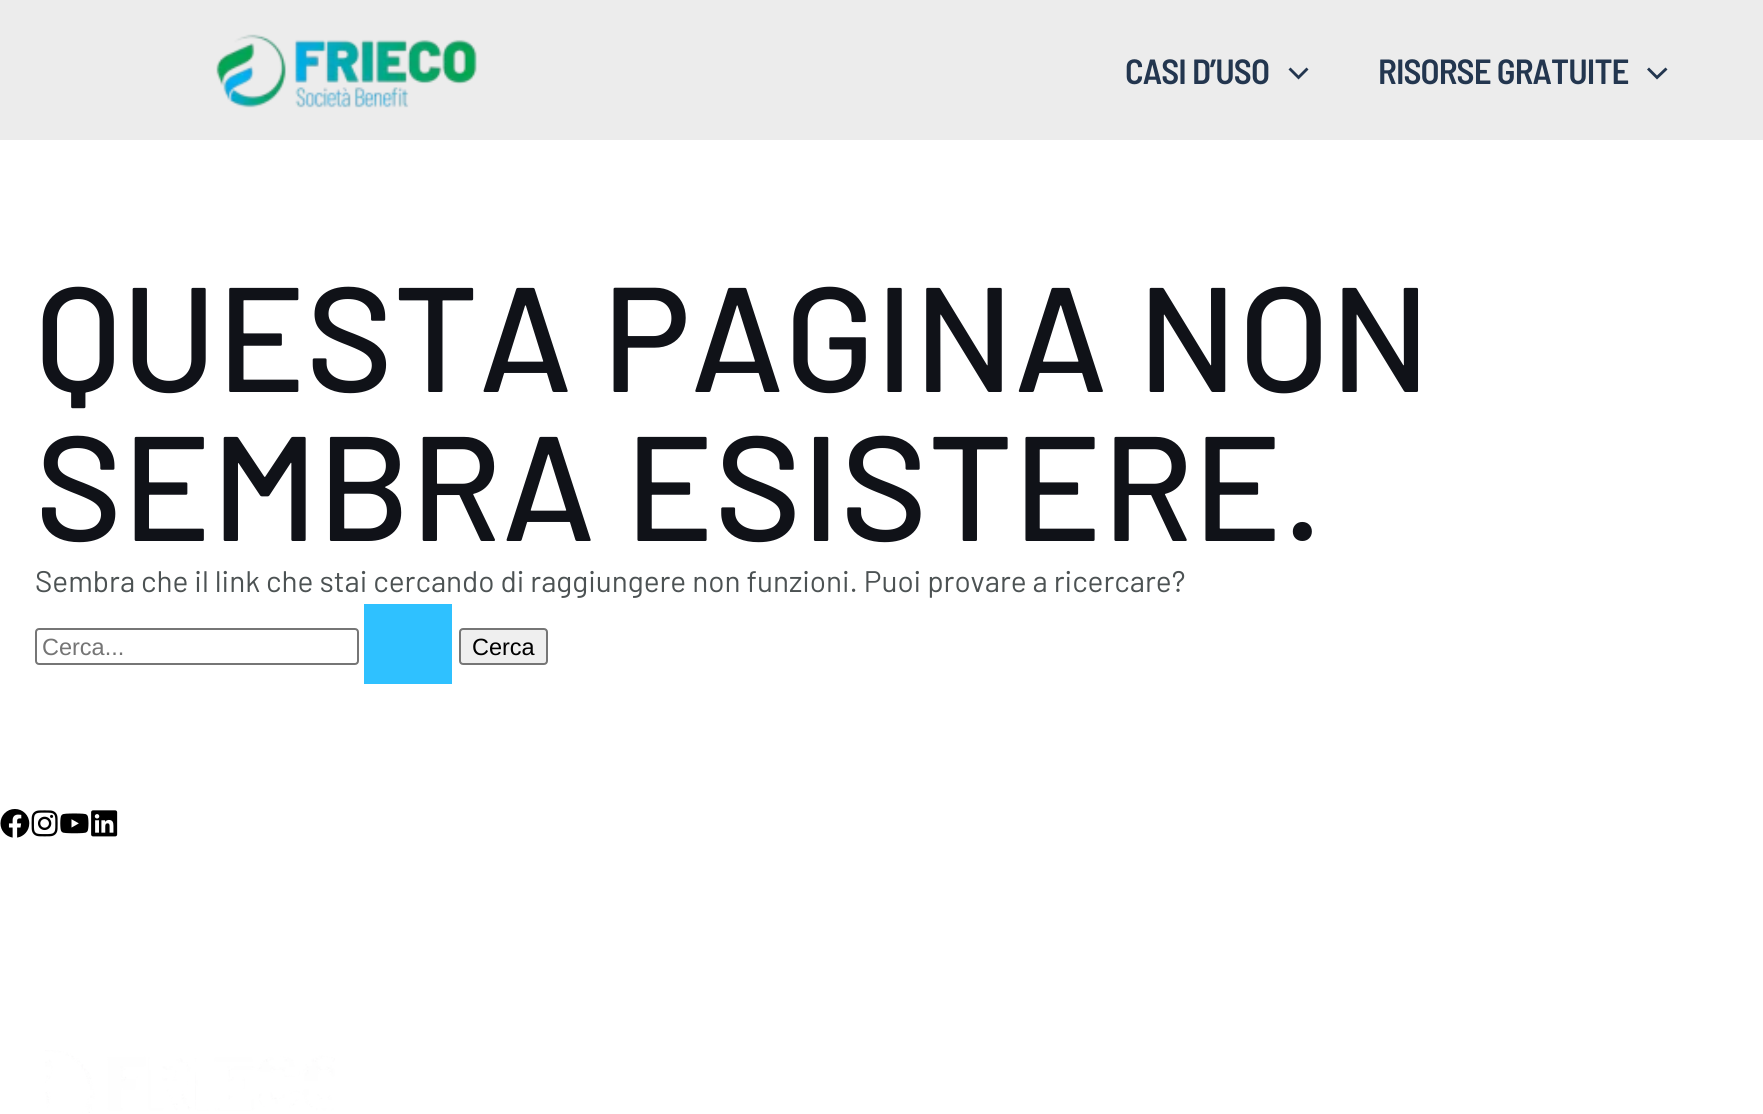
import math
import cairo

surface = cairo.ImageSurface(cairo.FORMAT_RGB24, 1763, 1114)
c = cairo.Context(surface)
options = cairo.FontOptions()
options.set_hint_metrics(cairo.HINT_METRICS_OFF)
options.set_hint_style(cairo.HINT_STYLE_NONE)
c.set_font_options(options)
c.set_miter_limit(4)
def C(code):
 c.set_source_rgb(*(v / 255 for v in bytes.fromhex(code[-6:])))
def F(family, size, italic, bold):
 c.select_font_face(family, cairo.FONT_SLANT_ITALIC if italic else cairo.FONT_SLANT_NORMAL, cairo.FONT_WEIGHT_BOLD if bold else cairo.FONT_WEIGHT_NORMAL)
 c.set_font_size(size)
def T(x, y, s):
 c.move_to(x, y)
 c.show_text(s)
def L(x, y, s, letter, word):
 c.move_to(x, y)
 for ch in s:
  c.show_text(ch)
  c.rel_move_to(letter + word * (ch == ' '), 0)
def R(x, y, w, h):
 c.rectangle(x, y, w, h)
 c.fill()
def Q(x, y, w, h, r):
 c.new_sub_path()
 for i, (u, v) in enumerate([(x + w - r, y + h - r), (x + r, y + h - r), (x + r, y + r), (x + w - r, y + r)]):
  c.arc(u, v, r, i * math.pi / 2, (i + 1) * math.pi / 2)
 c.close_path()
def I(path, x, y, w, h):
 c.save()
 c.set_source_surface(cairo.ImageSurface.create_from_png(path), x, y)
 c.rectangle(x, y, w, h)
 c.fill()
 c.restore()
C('ffffff')
c.paint()
C('ececec')
R(0,0,1763,140)
I('1.png',216,34,261,74)
F('Barlow Semi Condensed SemiBold',35,0,0)
C('23364f')
L(1125,84,'CASI D’USO',-.9,0)
c.new_path()
c.move_to(1288.5,69.5)
c.line_to(1298.5,79.5)
c.line_to(1308.5,69.5)
c.line_to(1306.5,67.5)
c.line_to(1298.5,75.5)
c.line_to(1290.5,67.5)
c.close_path()
c.fill()
L(1378,84,'RISORSE GRATUITE',-.9,0)
c.new_path()
c.move_to(1647,69.5)
c.line_to(1657,79.5)
c.line_to(1667.5,69.5)
c.line_to(1665.5,67.5)
c.line_to(1657,75.5)
c.line_to(1649,67.5)
c.close_path()
c.fill()
F('Barlow Medium',148.75,0,0)
C('101218')
T(35,392,'QUESTA PAGINA NON')
T(35,541,'SEMBRA ESISTERE.')
F('Barlow',29.75,0,0)
C('4c5253')
T(35,592,'Sembra che il link che stai cercando di raggiungere non funzioni. Puoi provare a ricercare?')
Q(36,629,322,35,3)
C('767676')
c.stroke()
F('Liberation Sans',23.5,0,0)
C('757575')
T(42,655,'Cerca...')
C('2fc1ff')
R(364,604,88,80)
C('efefef')
Q(460,629,87,35,3)
c.fill_preserve()
C('767676')
c.stroke()
C('000000')
T(472,655,'Cerca')
I('2.png',0,809,30,29)
I('3.png',31,810,27,27)
I('4.png',60,813,29,21)
I('5.png',91,810,27,27)
I('6.png',45,1050,290,63)
surface.write_to_png('o.png')
